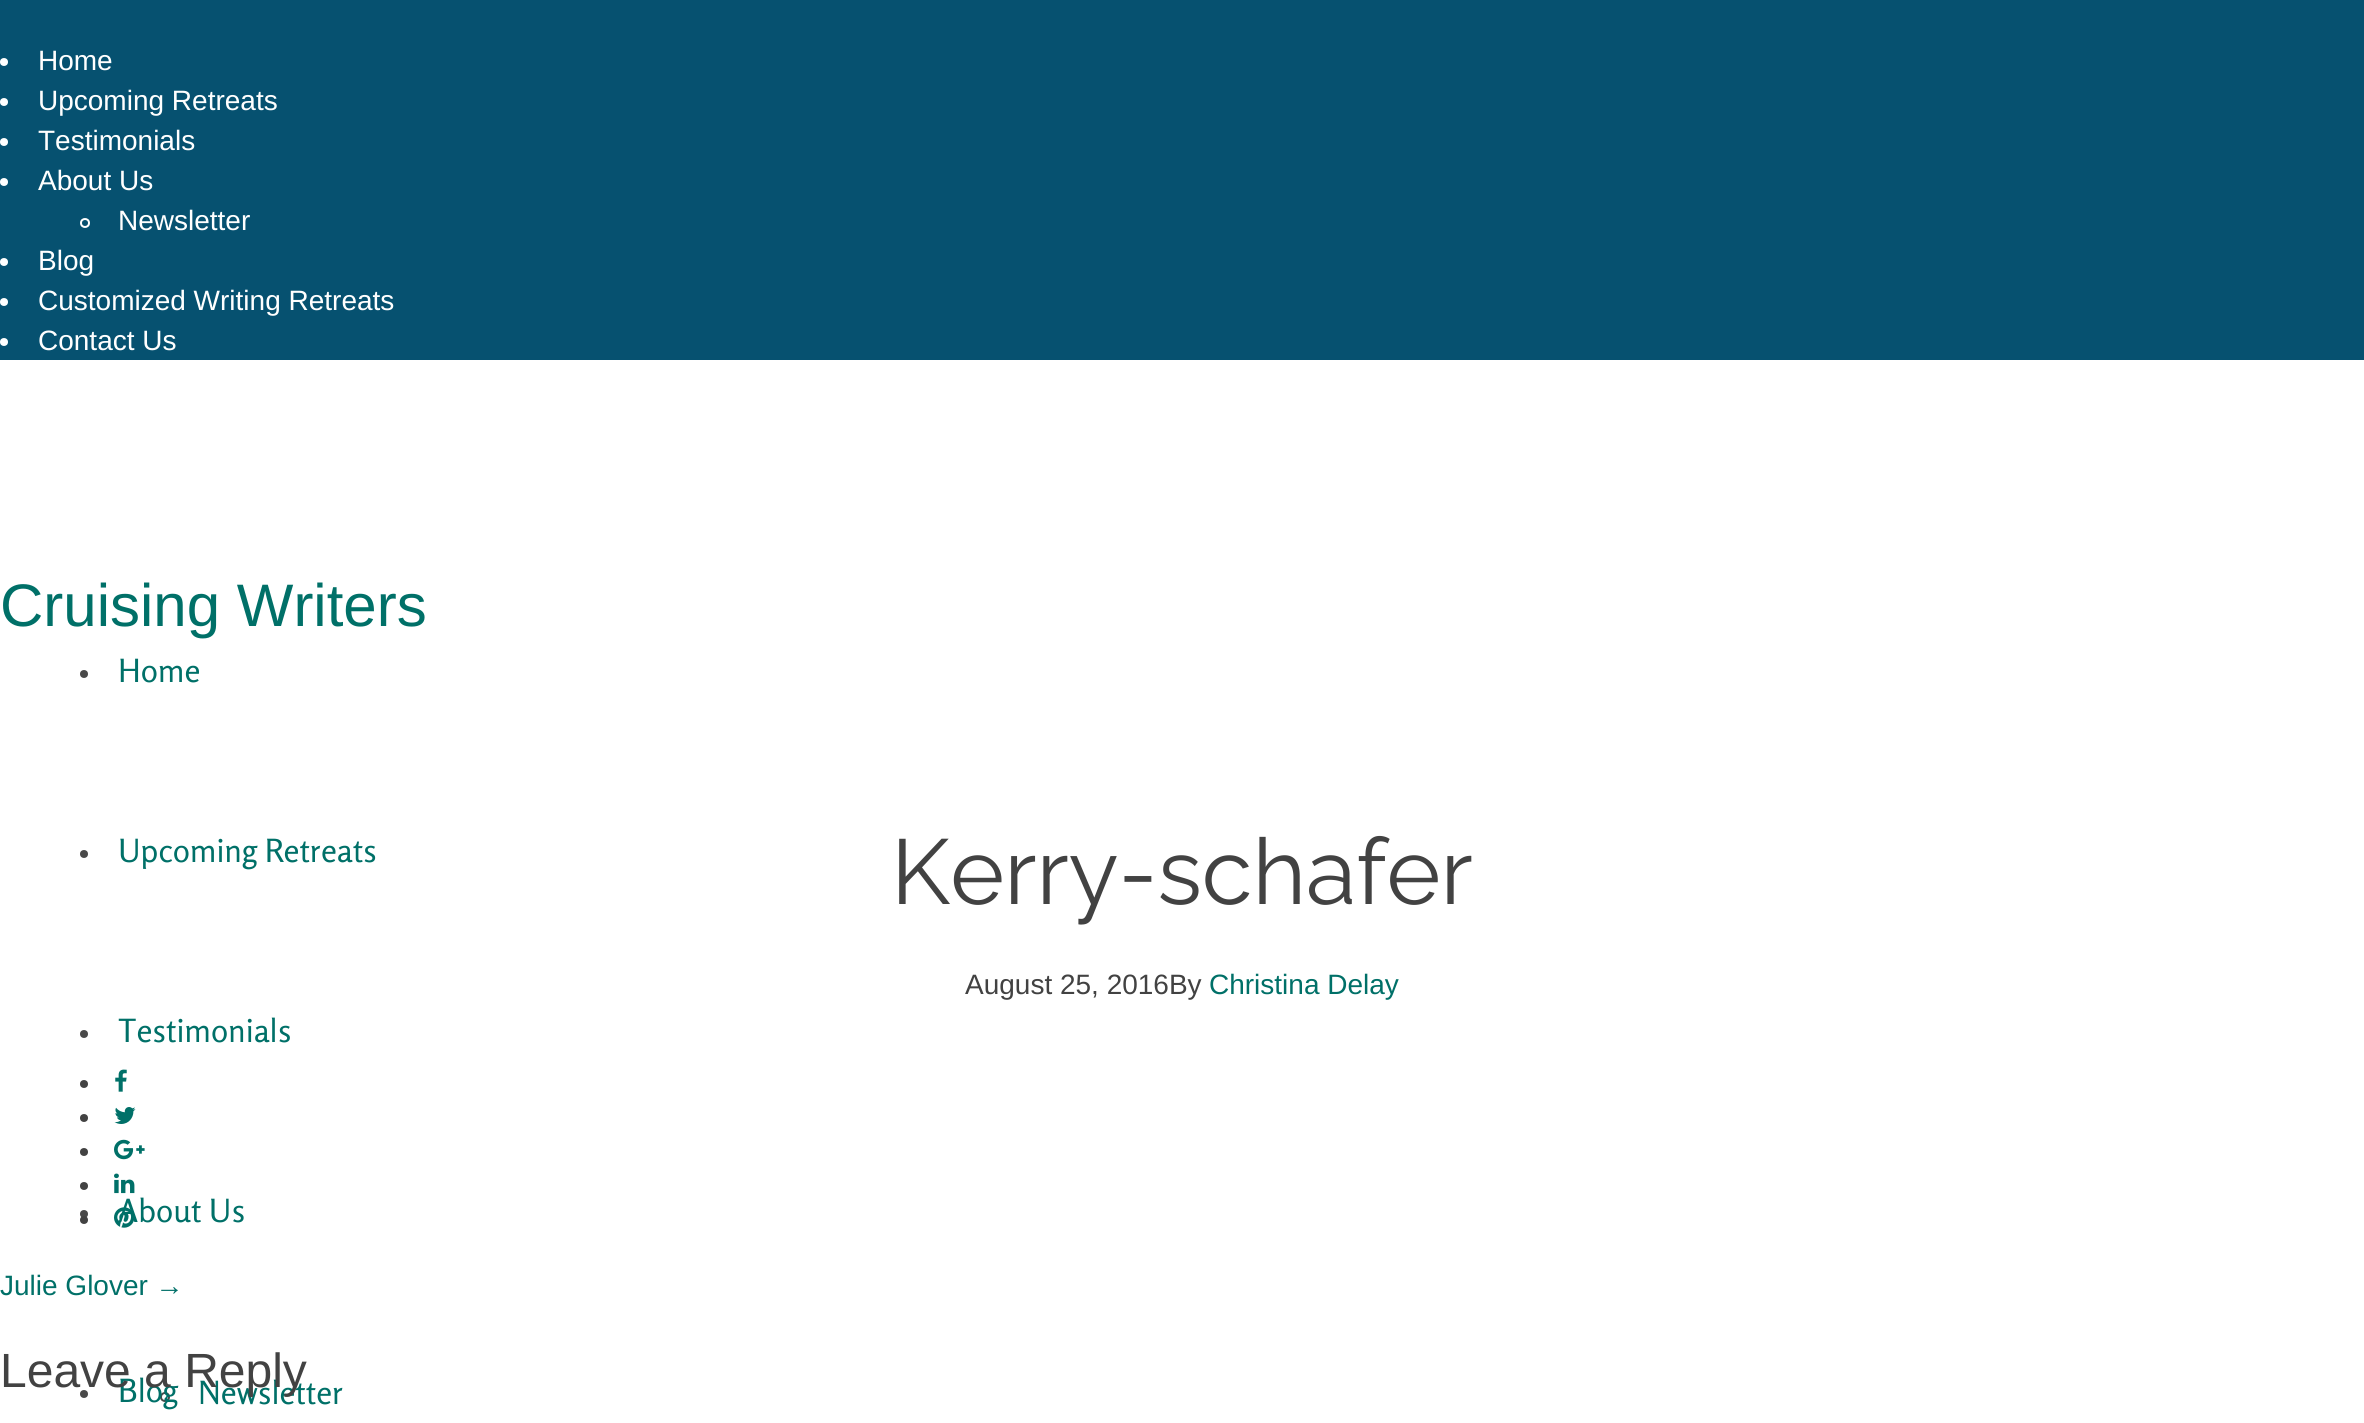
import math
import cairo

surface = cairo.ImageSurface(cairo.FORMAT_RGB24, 2364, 1423)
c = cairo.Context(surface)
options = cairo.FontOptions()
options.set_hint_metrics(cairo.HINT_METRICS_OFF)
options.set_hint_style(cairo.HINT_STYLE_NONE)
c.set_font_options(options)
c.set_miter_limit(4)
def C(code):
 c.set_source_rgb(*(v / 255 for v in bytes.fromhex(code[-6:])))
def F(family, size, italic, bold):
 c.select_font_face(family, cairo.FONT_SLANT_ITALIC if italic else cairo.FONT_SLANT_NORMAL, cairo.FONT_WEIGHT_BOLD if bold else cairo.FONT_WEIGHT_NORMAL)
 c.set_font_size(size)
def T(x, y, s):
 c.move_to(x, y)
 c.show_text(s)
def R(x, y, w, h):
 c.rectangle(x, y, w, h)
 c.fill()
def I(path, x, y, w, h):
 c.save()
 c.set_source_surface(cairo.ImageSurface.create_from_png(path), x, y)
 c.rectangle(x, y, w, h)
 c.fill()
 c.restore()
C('ffffff')
c.paint()
C('065170')
R(0,0,2364,360)
C('ffffff')
c.arc(4,62,4,0,2 * math.pi)
c.fill()
F('Liberation Sans',28,0,0)
T(38,70,'Home')
c.new_path()
c.arc(4,102,4,0,2 * math.pi)
c.fill()
T(38,110,'Upcoming Retreats')
c.new_path()
c.arc(4,142,4,0,2 * math.pi)
c.fill()
T(38,150,'Testimonials')
c.new_path()
c.arc(4,182,4,0,2 * math.pi)
c.fill()
T(38,190,'About Us')
c.new_path()
c.arc(85,223,4,0,2 * math.pi)
c.stroke()
T(118,230,'Newsletter')
c.new_path()
c.arc(4,262,4,0,2 * math.pi)
c.fill()
T(38,270,'Blog')
c.new_path()
c.arc(4,302,4,0,2 * math.pi)
c.fill()
T(38,310,'Customized Writing Retreats')
c.new_path()
c.arc(4,342,4,0,2 * math.pi)
c.fill()
T(38,350,'Contact Us')
F('Liberation Sans',60,0,0)
C('007068')
T(0,626,'Cruising Writers')
C('494949')
c.new_path()
c.arc(84,674,4,0,2 * math.pi)
c.fill()
F('Rosario',32,0,0)
C('007068')
T(118,682,'Home')
C('494949')
c.new_path()
c.arc(84,854,4,0,2 * math.pi)
c.fill()
C('007068')
T(118,862,'Upcoming Retreats')
C('494949')
c.new_path()
c.arc(84,1034,4,0,2 * math.pi)
c.fill()
C('007068')
T(118,1042,'Testimonials')
C('494949')
c.new_path()
c.arc(84,1214,4,0,2 * math.pi)
c.fill()
C('007068')
T(118,1222,'About Us')
c.new_path()
c.arc(165,1397,4,0,2 * math.pi)
C('494949')
c.stroke()
C('007068')
T(198,1404,'Newsletter')
C('494949')
c.new_path()
c.arc(84,1394,4,0,2 * math.pi)
c.fill()
C('007068')
T(118,1402,'Blog')
F('Raleway Thin',92,0,0)
C('424242')
T(891,904,'Kerry-schafer')
F('Liberation Sans',28,0,0)
T(965,994,'August 25, 2016By')
C('007068')
T(1209,994,'Christina Delay')
C('424242')
c.new_path()
c.arc(84,1084,4,0,2 * math.pi)
c.fill()
I('1.png',115,1069,12,23)
c.arc(84,1118,4,0,2 * math.pi)
c.fill()
I('2.png',114,1107,22,17)
c.arc(84,1152,4,0,2 * math.pi)
c.fill()
I('3.png',114,1139,31,21)
c.arc(84,1186,4,0,2 * math.pi)
c.fill()
I('4.png',114,1173,21,21)
c.arc(84,1220,4,0,2 * math.pi)
c.fill()
I('5.png',114,1207,20,21)
C('007068')
T(0,1295,'Julie Glover →')
F('Liberation Sans',48,0,0)
C('424242')
T(0,1387,'Leave a Reply')
surface.write_to_png('o.png')
